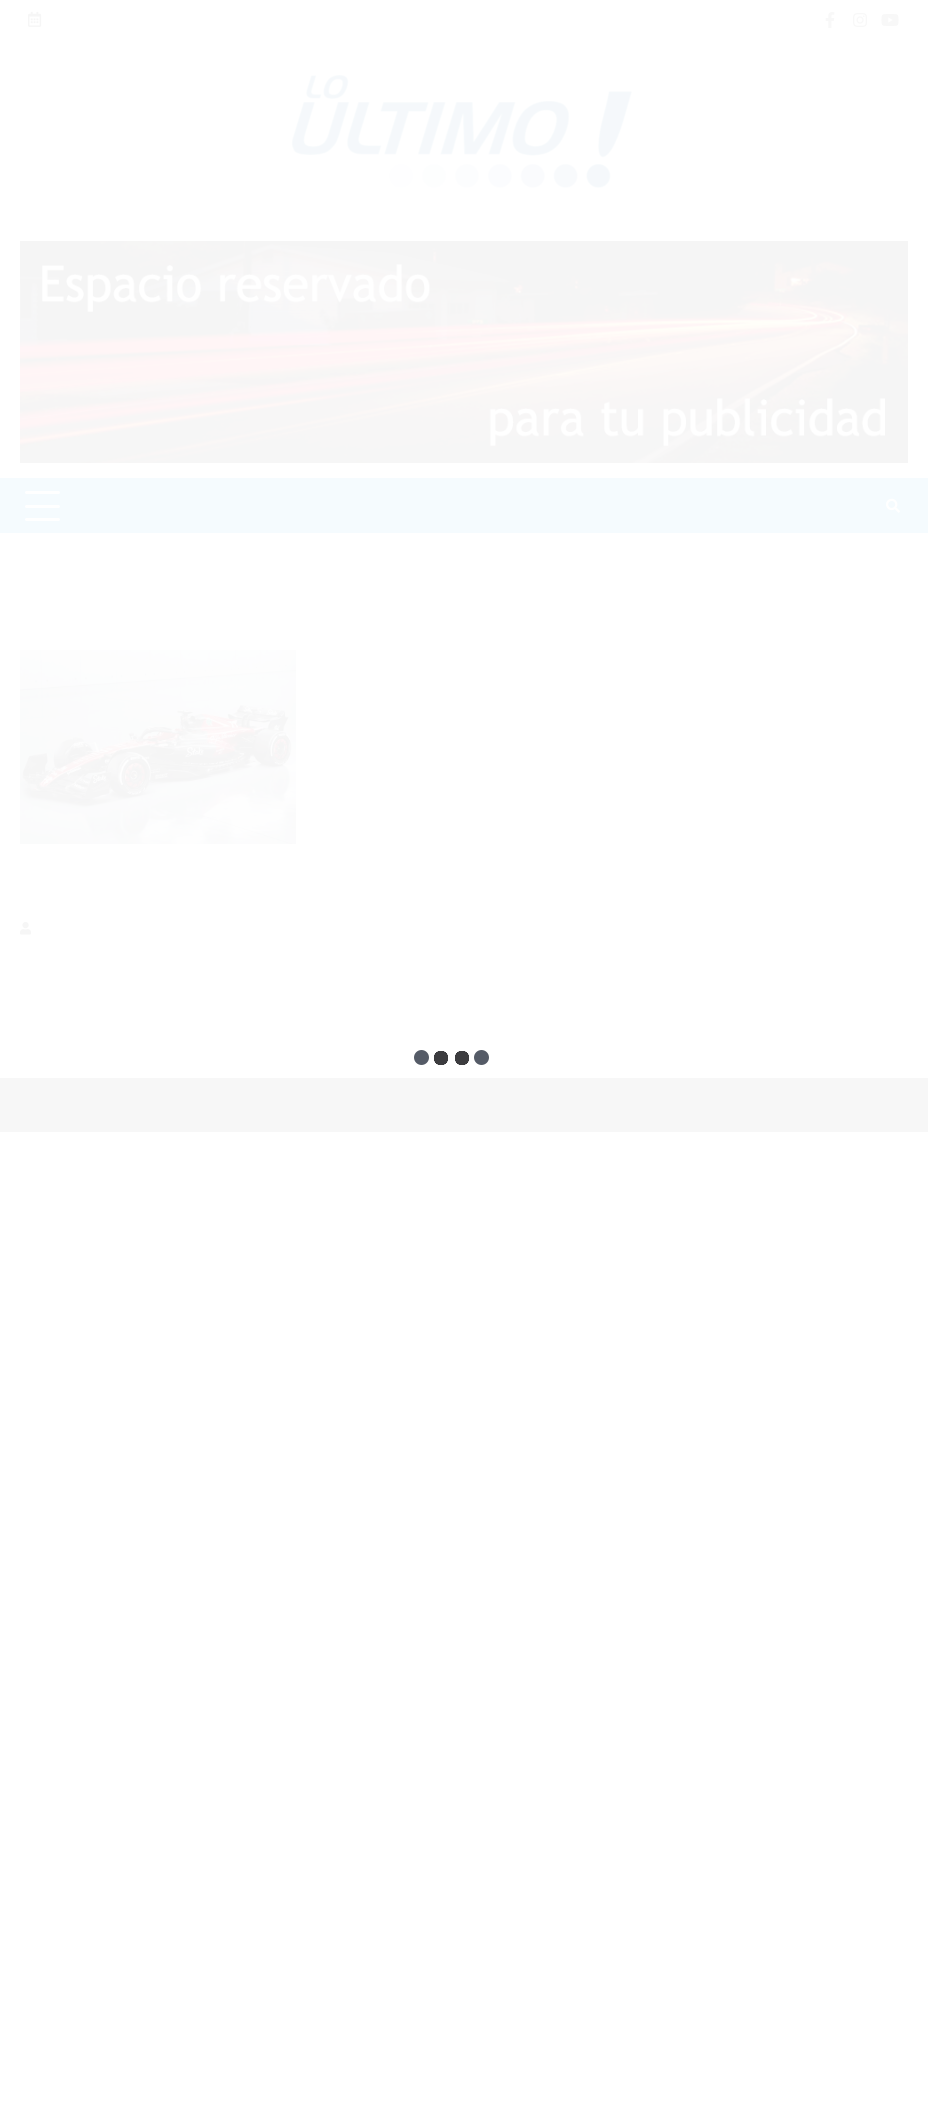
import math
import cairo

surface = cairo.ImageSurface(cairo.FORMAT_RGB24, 928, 2115)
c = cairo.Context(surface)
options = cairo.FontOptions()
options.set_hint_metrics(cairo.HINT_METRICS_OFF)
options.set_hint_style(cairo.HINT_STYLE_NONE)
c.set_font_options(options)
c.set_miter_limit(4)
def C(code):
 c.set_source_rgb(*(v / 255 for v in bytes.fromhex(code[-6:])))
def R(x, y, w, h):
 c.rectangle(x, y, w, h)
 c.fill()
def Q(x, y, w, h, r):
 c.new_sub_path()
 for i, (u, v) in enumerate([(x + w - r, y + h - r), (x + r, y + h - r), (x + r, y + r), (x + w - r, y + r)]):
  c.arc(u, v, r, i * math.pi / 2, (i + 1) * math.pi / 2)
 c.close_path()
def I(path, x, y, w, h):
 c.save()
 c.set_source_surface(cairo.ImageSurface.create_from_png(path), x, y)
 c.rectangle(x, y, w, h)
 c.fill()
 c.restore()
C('ffffff')
c.paint()
I('1.png',28,11,14,16)
I('2.png',825,12,10,16)
I('3.png',853,13,15,14)
I('4.png',881,14,18,12)
I('5.png',291,74,341,114)
I('6.png',20,241,888,222)
C('f5fbfe')
R(0,478,928,55)
C('ffffff')
Q(25,491,35,3,1.5)
c.fill()
Q(25,505,35,3,1.5)
c.fill()
Q(25,518,35,3,1.5)
c.fill()
I('7.png',886,498,14,15)
I('8.png',20,650,276,194)
I('9.png',20,922,12,13)
gradient = cairo.RadialGradient(462,1058,0,462,1058,7.5)
gradient.add_color_stop_rgba(.95,0.235,0.235,0.247,1)
gradient.add_color_stop_rgba(1,1,1,1,1)
c.set_source(gradient)
R(455,1051,14,14)
gradient = cairo.RadialGradient(441,1058,0,441,1058,7.5)
gradient.add_color_stop_rgba(.95,0.235,0.235,0.247,1)
gradient.add_color_stop_rgba(1,1,1,1,1)
c.set_source(gradient)
R(434,1051,14,14)
C('555b67')
c.arc(421.5,1057.5,7.5,0,2 * math.pi)
c.fill()
c.arc(481.5,1057.5,7.5,0,2 * math.pi)
c.fill()
C('f7f7f7')
R(0,1078,928,54)
surface.write_to_png('o.png')
